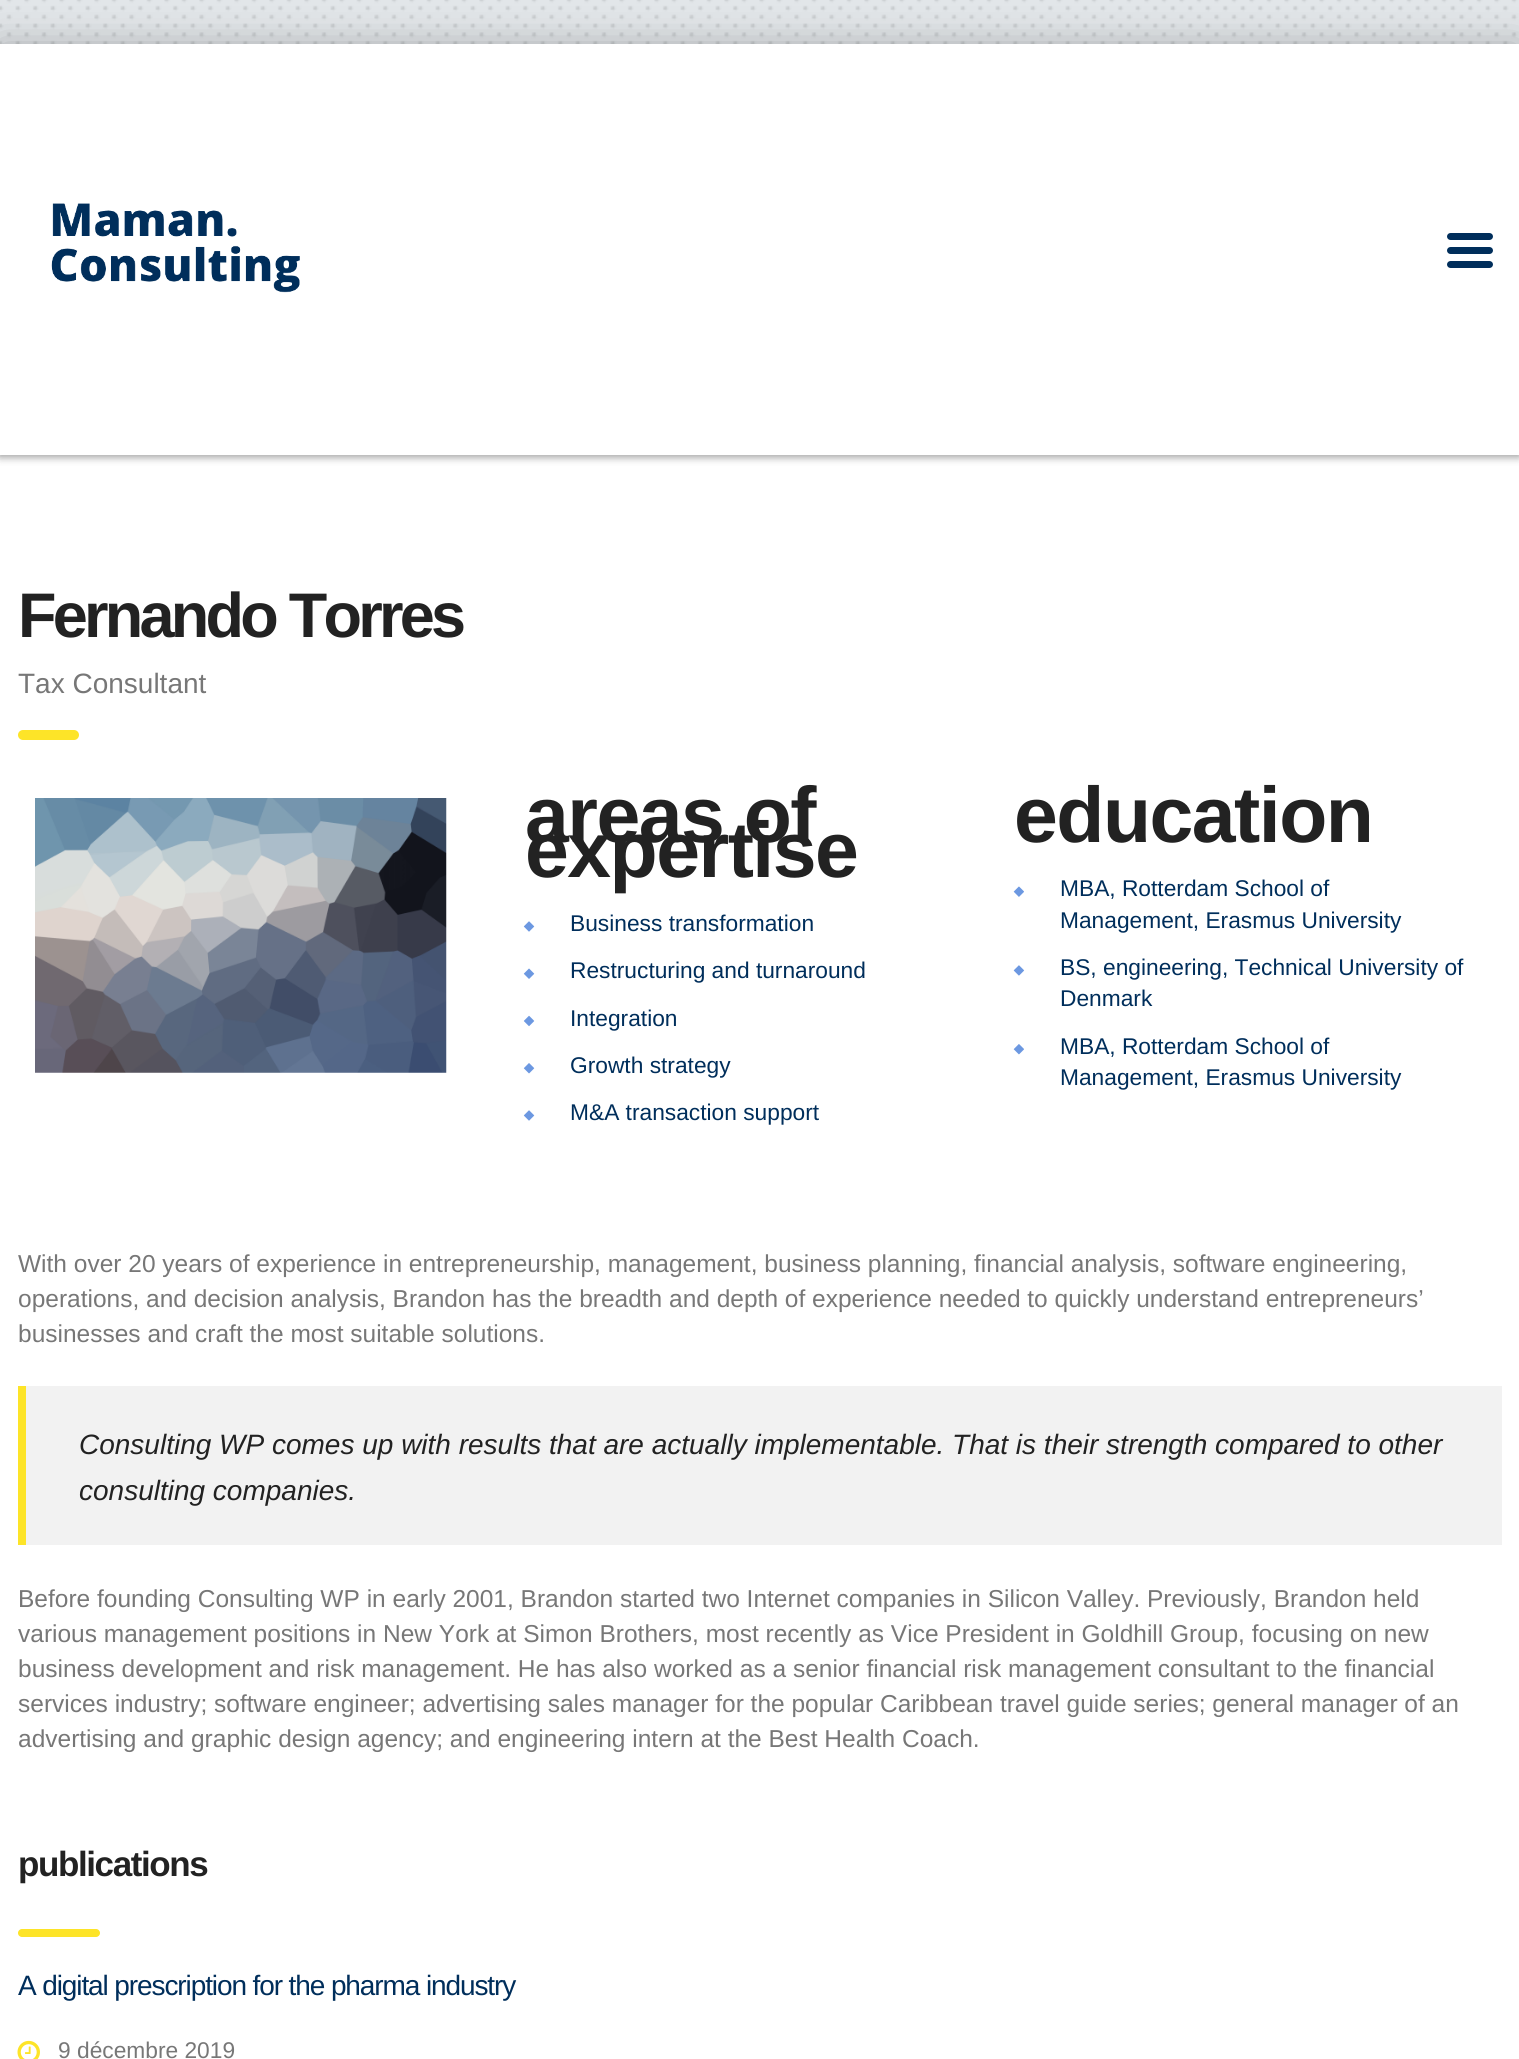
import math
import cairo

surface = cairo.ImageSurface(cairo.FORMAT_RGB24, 1519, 2059)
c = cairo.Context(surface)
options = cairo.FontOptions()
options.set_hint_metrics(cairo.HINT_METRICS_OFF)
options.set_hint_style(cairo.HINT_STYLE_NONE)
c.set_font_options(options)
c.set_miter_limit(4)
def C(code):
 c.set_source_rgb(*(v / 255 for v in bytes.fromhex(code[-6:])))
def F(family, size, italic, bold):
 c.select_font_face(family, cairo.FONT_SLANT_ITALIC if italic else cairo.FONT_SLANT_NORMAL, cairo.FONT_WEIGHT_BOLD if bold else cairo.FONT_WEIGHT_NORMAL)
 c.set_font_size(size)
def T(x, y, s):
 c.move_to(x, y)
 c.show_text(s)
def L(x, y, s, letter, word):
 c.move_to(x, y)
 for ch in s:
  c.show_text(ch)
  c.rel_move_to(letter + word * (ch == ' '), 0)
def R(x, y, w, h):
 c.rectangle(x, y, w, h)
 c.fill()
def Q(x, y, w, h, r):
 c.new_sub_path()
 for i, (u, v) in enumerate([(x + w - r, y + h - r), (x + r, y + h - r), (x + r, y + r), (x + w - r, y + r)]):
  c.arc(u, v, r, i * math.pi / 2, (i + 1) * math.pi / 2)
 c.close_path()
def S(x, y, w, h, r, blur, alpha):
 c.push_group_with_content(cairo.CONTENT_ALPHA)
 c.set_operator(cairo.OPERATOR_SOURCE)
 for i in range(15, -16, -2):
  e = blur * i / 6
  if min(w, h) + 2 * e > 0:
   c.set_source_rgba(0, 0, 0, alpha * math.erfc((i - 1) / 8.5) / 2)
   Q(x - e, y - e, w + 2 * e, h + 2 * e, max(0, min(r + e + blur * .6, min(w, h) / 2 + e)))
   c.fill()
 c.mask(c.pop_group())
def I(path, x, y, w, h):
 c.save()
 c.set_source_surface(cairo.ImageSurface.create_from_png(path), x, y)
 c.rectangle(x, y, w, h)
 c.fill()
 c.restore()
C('ffffff')
c.paint()
I('1.png',0,0,1519,44)
C('000000')
S(0,44,1519,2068,0,17.5,.25)
C('ffffff')
R(0,455,1519,1604)
c.save()
c.rectangle(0,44,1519,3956)
c.clip()
C('000000')
S(0,44,1519,411,0,4.5,.52)
C('bcbcbc')
S(0,44,1519,411,0,4.5,1)
c.restore()
R(0,44,1519,411)
I('2.png',51,203,249,90)
C('002e5b')
Q(1447,247,46,7,3.5)
c.fill()
Q(1447,233,46,7,3.5)
c.fill()
Q(1447,261,46,7,3.5)
c.fill()
F('Liberation Sans',63,0,1)
C('222222')
L(18,637,'Fernando Torres',-3.75,0)
F('Liberation Sans',28,0,0)
C('777777')
T(18,693,'Tax Consultant')
C('fde428')
Q(18,730,61,10,5)
c.fill()
I('3.png',35,798,412,275)
F('Liberation Sans',78.75,0,1)
C('222222')
L(525,842,'areas of',-1.5,0)
L(525,877,'expertise',-1.5,0)
I('4.png',523,921,12,11)
F('Liberation Sans',22.75,0,0)
C('002e5b')
T(570,931,'Business transformation')
I('5.png',523,968,12,11)
T(570,978,'Restructuring and turnaround')
I('6.png',523,1015,12,12)
T(570,1026,'Integration')
I('7.png',523,1063,12,11)
T(570,1073,'Growth strategy')
I('4.png',523,1110,12,11)
T(570,1120,'M&A transaction support')
F('Liberation Sans',78.75,0,1)
C('222222')
L(1014,842,'education',-1.5,0)
I('8.png',1013,886,11,11)
F('Liberation Sans',22.75,0,0)
C('002e5b')
T(1060,896,'MBA, Rotterdam School of')
T(1060,928,'Management, Erasmus University')
I('9.png',1013,965,12,11)
T(1060,975,'BS, engineering, Technical University of')
T(1060,1006,'Denmark')
I('10.png',1013,1044,11,11)
T(1060,1054,'MBA, Rotterdam School of')
T(1060,1085,'Management, Erasmus University')
F('Liberation Sans',24.5,0,0)
C('777777')
T(18,1272,'With over 20 years of experience in entrepreneurship, management, business planning, financial analysis, software engineering,')
T(18,1307,'operations, and decision analysis, Brandon has the breadth and depth of experience needed to quickly understand entrepreneurs’')
T(18,1342,'businesses and craft the most suitable solutions.')
C('f2f2f2')
R(26,1386,1476,159)
C('fde428')
R(18,1386,8,159)
F('Liberation Sans',28,1,0)
C('222222')
T(79,1454,'Consulting WP comes up with results that are actually implementable. That is their strength compared to other')
T(79,1500,'consulting companies.')
F('Liberation Sans',24.5,0,0)
C('777777')
T(18,1607,'Before founding Consulting WP in early 2001, Brandon started two Internet companies in Silicon Valley. Previously, Brandon held')
T(18,1642,'various management positions in New York at Simon Brothers, most recently as Vice President in Goldhill Group, focusing on new')
T(18,1677,'business development and risk management. He has also worked as a senior financial risk management consultant to the financial')
T(18,1712,'services industry; software engineer; advertising sales manager for the popular Caribbean travel guide series; general manager of an')
T(18,1747,'advertising and graphic design agency; and engineering intern at the Best Health Coach.')
F('Liberation Sans',35,0,1)
C('222222')
L(18,1876,'publications',-1.4,0)
C('fde428')
Q(18,1929,82,8,4)
c.fill()
F('Liberation Sans',28,0,0)
C('002e5b')
L(18,1995,'A digital prescription for the pharma industry',-1.1,0)
I('11.png',17,2040,23,19)
F('Liberation Sans',22.75,0,0)
C('777777')
T(58,2058,'9 décembre 2019')
surface.write_to_png('o.png')
